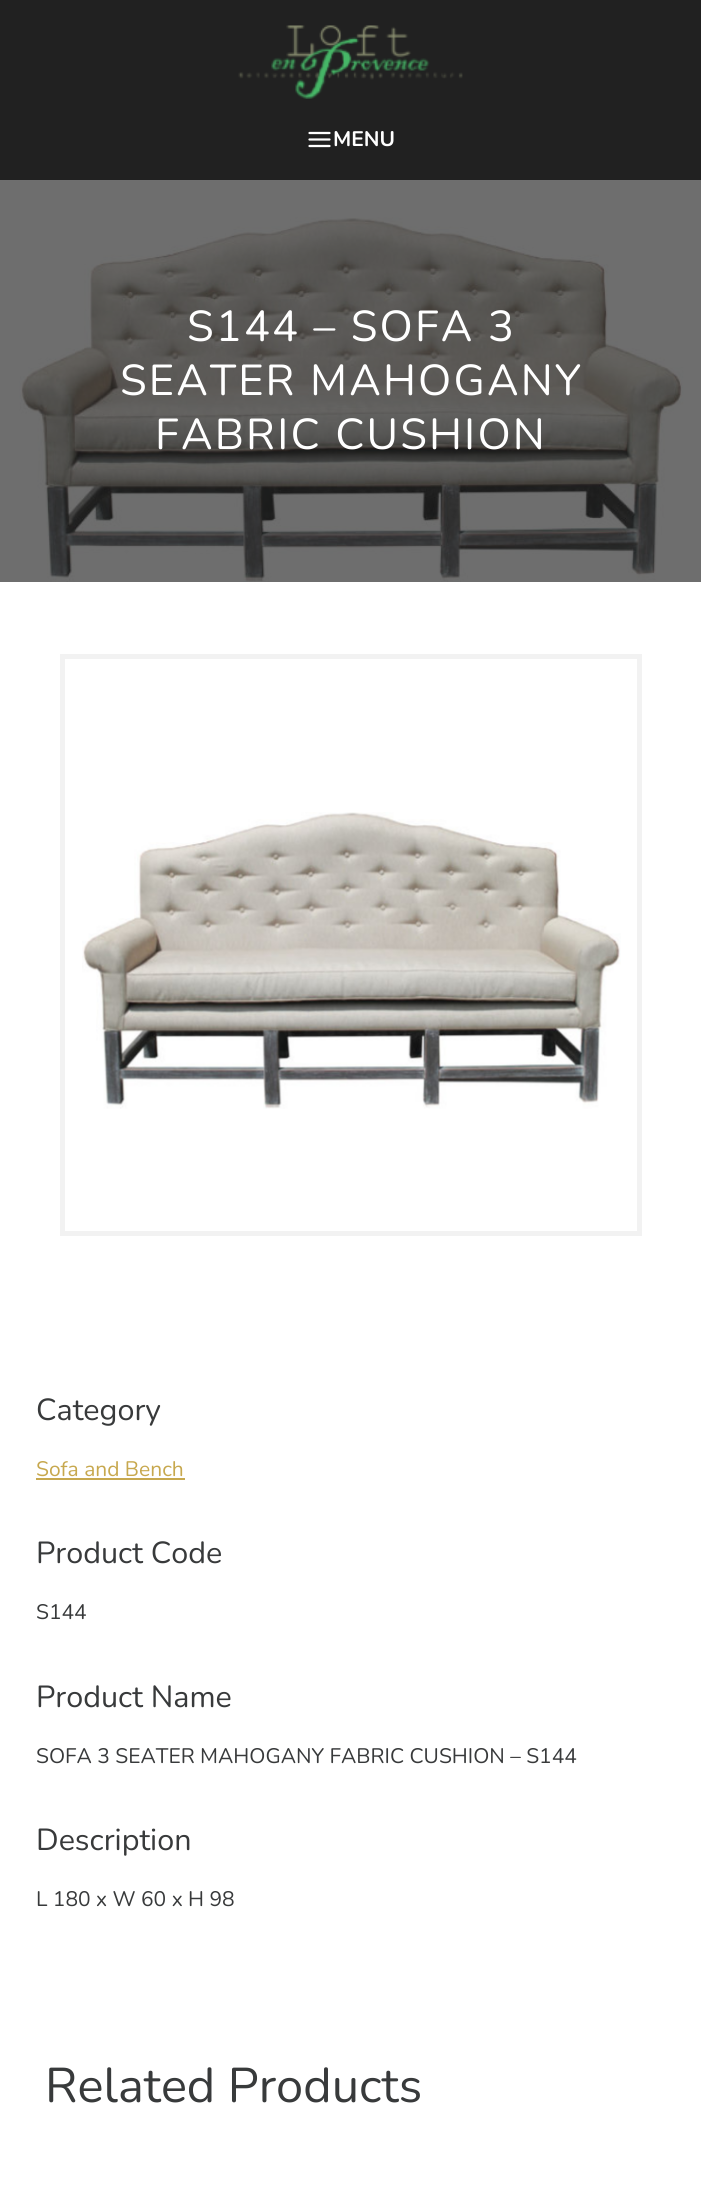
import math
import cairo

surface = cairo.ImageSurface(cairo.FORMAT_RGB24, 701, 2200)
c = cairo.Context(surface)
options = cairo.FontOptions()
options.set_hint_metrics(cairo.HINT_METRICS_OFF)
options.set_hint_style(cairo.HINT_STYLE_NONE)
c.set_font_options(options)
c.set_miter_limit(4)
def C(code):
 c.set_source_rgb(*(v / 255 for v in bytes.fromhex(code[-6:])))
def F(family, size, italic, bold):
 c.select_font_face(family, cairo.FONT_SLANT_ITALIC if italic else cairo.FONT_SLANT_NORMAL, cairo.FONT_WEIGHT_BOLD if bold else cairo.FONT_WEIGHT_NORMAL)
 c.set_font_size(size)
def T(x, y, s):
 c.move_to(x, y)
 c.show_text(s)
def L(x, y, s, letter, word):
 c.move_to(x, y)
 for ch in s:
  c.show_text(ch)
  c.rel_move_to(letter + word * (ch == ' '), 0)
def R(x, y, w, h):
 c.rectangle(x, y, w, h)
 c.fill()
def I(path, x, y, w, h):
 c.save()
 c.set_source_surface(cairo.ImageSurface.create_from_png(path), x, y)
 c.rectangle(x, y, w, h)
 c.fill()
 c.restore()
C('ffffff')
c.paint()
C('212121')
R(0,0,701,582)
I('1.png',238,25,225,74)
c.new_path()
c.move_to(309.5,139.5)
c.line_to(329.5,139.5)
c.move_to(309.5,133)
c.line_to(329.5,133)
c.move_to(309.5,146)
c.line_to(329.5,146)
C('ffffff')
c.set_line_width(2.2)
c.set_line_cap(cairo.LINE_CAP_ROUND)
c.set_line_join(cairo.LINE_JOIN_ROUND)
c.stroke()
F('Nunito',21,0,1)
T(333,146,'MENU')
I('2.png',0,180,701,402)
F('Nunito',43.25,0,0)
L(187,341,'S144 – SOFA 3',2.2,0)
L(120,395,'SEATER MAHOGANY',2.2,0)
L(155,449,'FABRIC CUSHION',2.2,0)
c.rectangle(62.5,656.5,577,577)
C('f2f2f2')
c.set_line_width(5)
c.set_line_cap(cairo.LINE_CAP_BUTT)
c.set_line_join(cairo.LINE_JOIN_MITER)
c.stroke()
I('3.png',82,812,539,297)
F('Nunito',30.5,0,0)
C('383a3b')
T(36,1420,'Category')
F('Nunito',21,0,0)
C('c7a84e')
T(36,1476,'Sofa and Bench')
R(36,1478,149,2)
F('Nunito',30.5,0,0)
C('383a3b')
T(36,1563,'Product Code')
F('Nunito',21,0,0)
T(36,1619,'S144')
F('Nunito',30.5,0,0)
T(36,1707,'Product Name')
F('Nunito',21,0,0)
T(36,1763,'SOFA 3 SEATER MAHOGANY FABRIC CUSHION – S144')
F('Nunito',30.5,0,0)
T(36,1850,'Description')
F('Nunito',21,0,0)
T(36,1906,'L 180 x W 60 x H 98')
F('Nunito',48.75,0,0)
T(45,2102,'Related Products')
surface.write_to_png('o.png')
